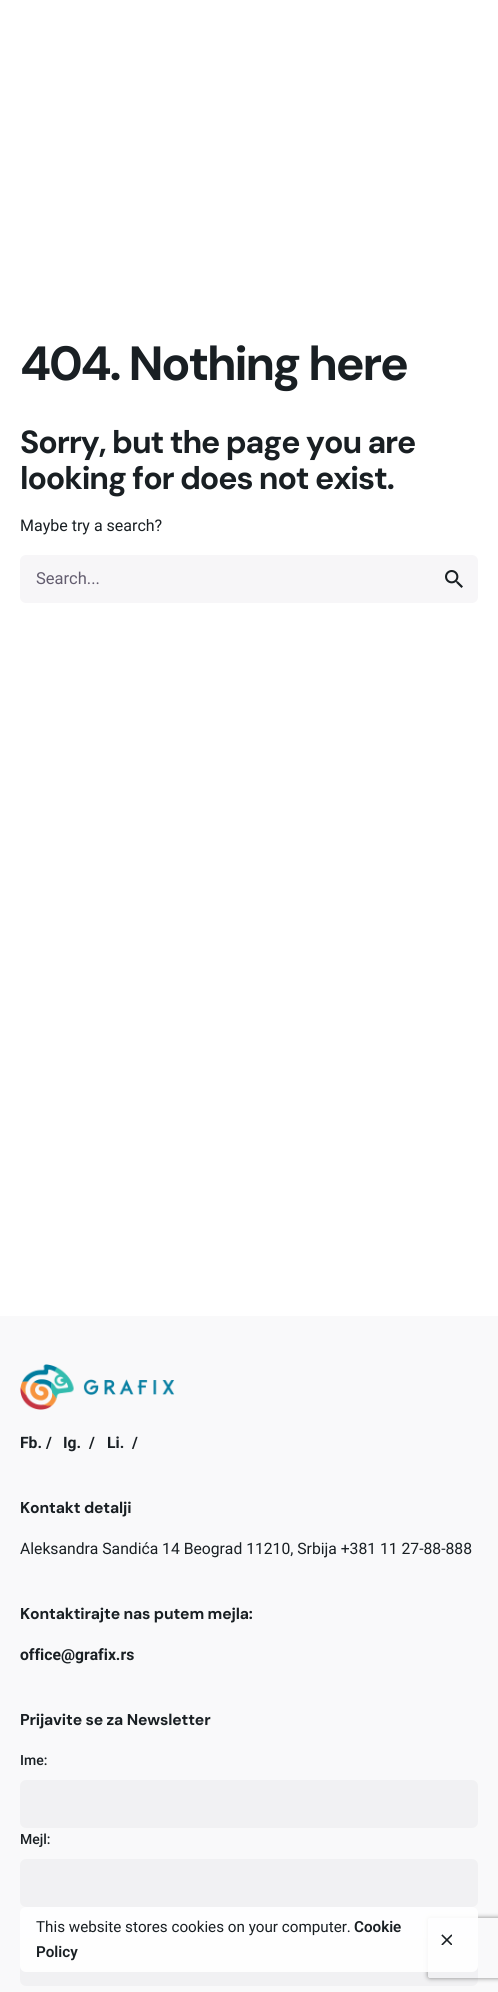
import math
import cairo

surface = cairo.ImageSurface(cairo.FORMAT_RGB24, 498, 1992)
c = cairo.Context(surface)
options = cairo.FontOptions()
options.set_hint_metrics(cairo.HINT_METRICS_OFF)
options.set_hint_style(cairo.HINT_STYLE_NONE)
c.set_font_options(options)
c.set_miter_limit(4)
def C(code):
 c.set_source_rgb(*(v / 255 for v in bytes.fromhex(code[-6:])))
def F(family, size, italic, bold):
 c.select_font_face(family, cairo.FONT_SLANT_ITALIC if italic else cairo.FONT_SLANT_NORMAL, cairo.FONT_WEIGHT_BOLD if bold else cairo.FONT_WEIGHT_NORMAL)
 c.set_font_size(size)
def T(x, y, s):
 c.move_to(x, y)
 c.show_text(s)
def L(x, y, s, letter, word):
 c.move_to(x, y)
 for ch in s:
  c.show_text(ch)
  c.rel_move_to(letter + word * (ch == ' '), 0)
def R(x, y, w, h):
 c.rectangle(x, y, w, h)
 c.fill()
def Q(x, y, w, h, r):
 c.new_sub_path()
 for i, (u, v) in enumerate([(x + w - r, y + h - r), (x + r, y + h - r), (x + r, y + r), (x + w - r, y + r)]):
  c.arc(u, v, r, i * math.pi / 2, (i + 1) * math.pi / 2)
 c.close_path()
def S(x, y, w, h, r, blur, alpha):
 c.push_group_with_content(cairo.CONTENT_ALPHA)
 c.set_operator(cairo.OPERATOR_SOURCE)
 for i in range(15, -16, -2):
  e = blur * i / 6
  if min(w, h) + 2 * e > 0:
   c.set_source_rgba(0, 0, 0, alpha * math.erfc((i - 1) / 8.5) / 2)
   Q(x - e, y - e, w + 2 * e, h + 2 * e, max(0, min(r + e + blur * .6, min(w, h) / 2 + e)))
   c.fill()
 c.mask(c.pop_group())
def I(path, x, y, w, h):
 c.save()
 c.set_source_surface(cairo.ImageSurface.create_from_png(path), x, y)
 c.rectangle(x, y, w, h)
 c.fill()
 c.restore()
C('ffffff')
c.paint()
F('DM Sans',48,0,1)
C('191f23')
L(20,380,'404. Nothing here',-2.2,0)
F('DM Sans',32,0,1)
L(20,453,'Sorry, but the page you are',-1.1,0)
L(20,489,'looking for does not exist.',-1.1,0)
F('Roboto',16,0,0)
T(20,531,'Maybe try a search?')
C('f7f6f8')
Q(20,555,458,48,6)
c.fill()
F('Roboto',16.5,0,0)
C('635d6f')
T(36,584,'Search...')
I('1.png',445,570,18,18)
C('f9f9fa')
R(0,1316,498,676)
I('2.png',20,1364,155,46)
F('Roboto',15.7,0,1)
C('191f23')
T(20,1448,'Fb. /')
T(63,1448,'Ig.')
T(89,1448,'/')
T(107,1448,'Li.')
T(132,1448,'/')
F('DM Sans',15.7,0,1)
L(20,1513,'Kontakt detalji',-.15,0)
F('Roboto',15.7,0,0)
T(20,1554,'Aleksandra Sandića 14 Beograd 11210, Srbija +381 11 27-88-888')
F('DM Sans',15.7,0,1)
L(20,1619,'Kontaktirajte nas putem mejla:',-.15,0)
F('Roboto',15.7,0,1)
T(20,1660,'office@grafix.rs')
F('DM Sans',15.7,0,1)
L(20,1725,'Prijavite se za Newsletter',-.15,0)
F('Roboto Medium',14,0,0)
T(20,1765,'Ime:')
C('f1f1f3')
Q(20,1780,458,48,6)
c.fill()
C('191f23')
T(20,1844,'Mejl:')
C('f1f1f3')
Q(20,1859,458,48,6)
c.fill()
Q(20,1938,458,48,6)
c.fill()
c.save()
c.set_fill_rule(cairo.FILL_RULE_EVEN_ODD)
c.new_path()
c.move_to(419,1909)
c.line_to(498,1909)
c.line_to(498,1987)
c.line_to(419,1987)
c.close_path()
c.move_to(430,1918)
c.line_to(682,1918)
c.curve_to(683,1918,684,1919,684,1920)
c.line_to(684,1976)
c.curve_to(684,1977,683,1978,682,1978)
c.line_to(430,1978)
c.curve_to(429,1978,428,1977,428,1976)
c.line_to(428,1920)
c.curve_to(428,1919,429,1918,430,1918)
c.close_path()
c.clip()
C('808080')
S(428,1918,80,60,2,2.5,1)
c.restore()
c.set_source_rgba(1,1,1,0.9)
Q(20,1907,458,65,6)
c.fill()
F('Roboto',15.2,0,0)
C('191f23')
T(36,1932,'This website stores cookies on your computer.')
F('Roboto SemiBold',15.2,0,0)
T(354,1932,'Cookie')
T(36,1957,'Policy')
I('3.png',441,1934,11,11)
surface.write_to_png('o.png')
